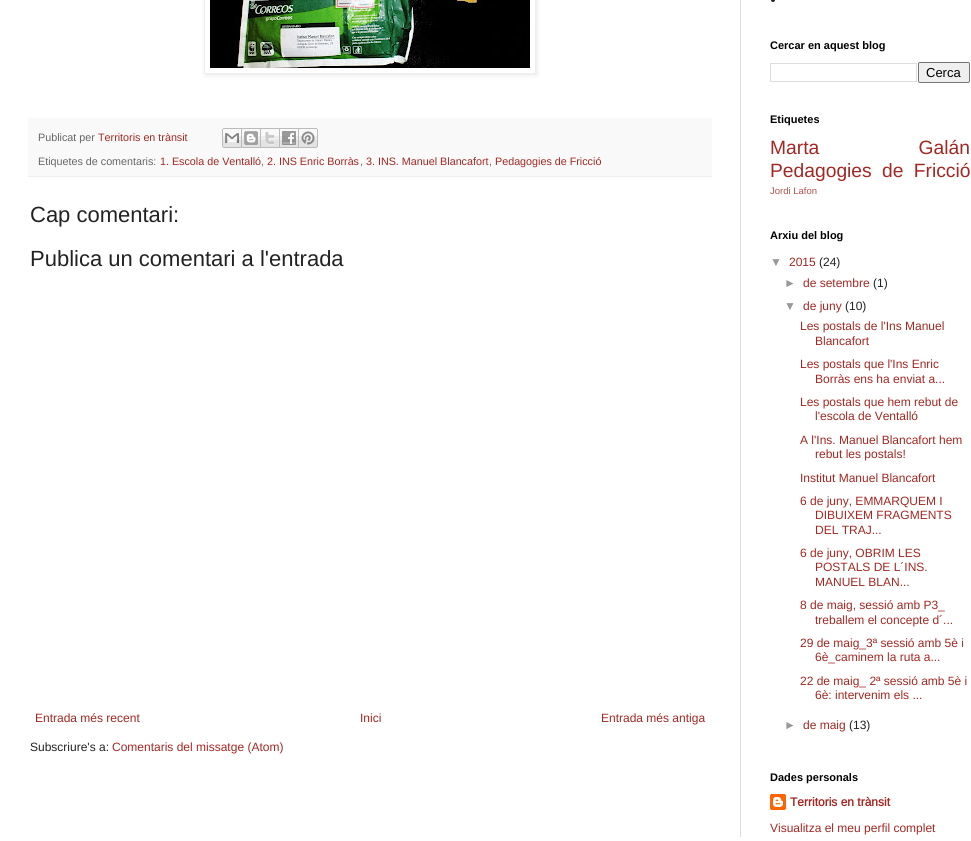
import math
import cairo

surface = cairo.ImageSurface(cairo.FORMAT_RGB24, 971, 841)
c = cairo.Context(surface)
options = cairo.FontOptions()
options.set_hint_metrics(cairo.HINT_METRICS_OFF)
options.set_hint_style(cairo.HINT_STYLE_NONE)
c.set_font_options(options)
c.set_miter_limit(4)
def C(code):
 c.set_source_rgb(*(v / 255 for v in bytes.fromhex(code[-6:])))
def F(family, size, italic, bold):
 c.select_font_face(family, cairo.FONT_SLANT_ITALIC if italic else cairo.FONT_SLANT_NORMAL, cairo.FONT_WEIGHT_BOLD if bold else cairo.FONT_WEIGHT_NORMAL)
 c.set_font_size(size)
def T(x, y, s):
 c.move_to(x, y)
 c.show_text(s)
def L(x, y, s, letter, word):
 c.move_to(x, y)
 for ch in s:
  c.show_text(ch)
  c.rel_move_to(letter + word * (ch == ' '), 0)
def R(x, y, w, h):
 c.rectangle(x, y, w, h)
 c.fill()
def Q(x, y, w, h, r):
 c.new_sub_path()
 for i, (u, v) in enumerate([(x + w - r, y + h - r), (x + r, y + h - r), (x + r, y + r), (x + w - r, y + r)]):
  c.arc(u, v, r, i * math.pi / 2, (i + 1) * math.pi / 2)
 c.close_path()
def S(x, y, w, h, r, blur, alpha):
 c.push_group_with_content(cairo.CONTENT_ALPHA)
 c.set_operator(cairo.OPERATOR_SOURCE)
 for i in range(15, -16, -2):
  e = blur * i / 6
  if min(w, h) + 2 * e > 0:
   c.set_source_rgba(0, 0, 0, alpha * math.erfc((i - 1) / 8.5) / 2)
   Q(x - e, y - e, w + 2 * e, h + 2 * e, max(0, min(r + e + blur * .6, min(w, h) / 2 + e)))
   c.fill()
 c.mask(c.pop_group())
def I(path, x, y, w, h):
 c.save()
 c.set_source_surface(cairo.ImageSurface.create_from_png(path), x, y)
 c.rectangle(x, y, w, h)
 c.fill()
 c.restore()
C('ffffff')
c.paint()
C('dddddd')
R(740,0,1,837)
c.save()
c.set_fill_rule(cairo.FILL_RULE_EVEN_ODD)
c.new_path()
c.move_to(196,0)
c.line_to(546,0)
c.line_to(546,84)
c.line_to(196,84)
c.close_path()
c.move_to(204,-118)
c.line_to(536,-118)
c.line_to(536,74)
c.line_to(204,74)
c.close_path()
c.clip()
C('000000')
S(205,-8,332,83,0,2.5,.1)
c.restore()
c.rectangle(204.5,-.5,331,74)
C('eeeeee')
c.set_line_width(1)
c.stroke()
I('1.png',210,0,320,68)
C('f9f9f9')
R(28,118,684,58)
C('eeeeee')
R(28,176,684,1)
F('Arimo',10.75,0,0)
C('666666')
T(38,141,'Publicat per')
C('a32823')
T(98,141,'Territoris en trànsit')
I('2.png',222,128,20,20)
I('3.png',242,128,19,20)
I('4.png',261,128,19,20)
I('5.png',280,128,19,20)
I('6.png',299,128,19,20)
C('666666')
T(38,165,'Etiquetes de comentaris:')
C('a32823')
T(160,165,'1. Escola de Ventalló')
C('666666')
T(261,165,',')
C('a32823')
T(267,165,'2. INS Enric Borràs')
C('666666')
T(360,165,',')
C('a32823')
T(366,165,'3. INS. Manuel Blancafort')
C('666666')
T(489,165,',')
C('a32823')
T(495,165,'Pedagogies de Fricció')
F('Liberation Sans',22,0,0)
C('222222')
T(30,222,'Cap comentari:')
T(30,266,'Publica un comentari a l\'entrada')
F('Arimo',12,0,0)
C('a32823')
T(35,722,'Entrada més recent')
T(360,722,'Inici')
T(601,722,'Entrada més antiga')
C('222222')
T(30,751,'Subscriure\'s a:')
C('a32823')
T(112,751,'Comentaris del missatge (Atom)')
C('222222')
c.new_path()
c.arc(773,0,2,0,2 * math.pi)
c.fill()
F('Liberation Sans',11,0,1)
C('000000')
T(770,49,'Cercar en aquest blog')
c.rectangle(770.5,63.5,146,18)
C('dddddd')
c.stroke()
C('efefef')
Q(918.5,62.5,51,20,1.5)
c.fill_preserve()
C('767676')
c.stroke()
F('Liberation Sans',13,0,0)
C('000000')
T(926,77,'Cerca')
F('Liberation Sans',11,0,1)
T(770,123,'Etiquetes')
F('Arimo',19.25,0,0)
C('a32823')
L(770,154,'Marta Galán',0,94)
L(770,177,'Pedagogies de Fricció',0,5)
F('Arimo',9.5,0,0)
C('b5534f')
T(770,194,'Jordi Lafon')
F('Liberation Sans',11,0,1)
C('000000')
T(770,239,'Arxiu del blog')
F('Liberation Sans',12,0,0)
C('999999')
T(770,266,'▼')
F('Arimo',12,0,0)
C('a32823')
T(789,266,'2015')
C('222222')
T(819,266,'(24)')
F('Liberation Sans',12,0,0)
C('999999')
T(784,287,'►')
F('Arimo',12,0,0)
C('a32823')
T(803,287,'de setembre')
C('222222')
T(873,287,'(1)')
F('Liberation Sans',12,0,0)
C('999999')
T(784,310,'▼')
F('Arimo',12,0,0)
C('a32823')
T(803,310,'de juny')
C('222222')
T(845,310,'(10)')
C('a32823')
T(800,330,'Les postals de l\'Ins Manuel')
T(815,345,'Blancafort')
T(800,368,'Les postals que l\'Ins Enric')
T(815,383,'Borràs ens ha enviat a...')
T(800,406,'Les postals que hem rebut de')
T(815,420,'l\'escola de Ventalló')
T(800,444,'A l\'Ins. Manuel Blancafort hem')
T(815,458,'rebut les postals!')
T(800,482,'Institut Manuel Blancafort')
T(800,505,'6 de juny, EMMARQUEM I')
T(815,519,'DIBUIXEM FRAGMENTS')
T(815,534,'DEL TRAJ...')
T(800,557,'6 de juny, OBRIM LES')
T(815,571,'POSTALS DE L´INS.')
T(815,586,'MANUEL BLAN...')
T(800,609,'8 de maig, sessió amb P3_')
T(815,624,'treballem el concepte d´...')
T(800,647,'29 de maig_3ª sessió amb 5è i')
T(815,661,'6è_caminem la ruta a...')
T(800,685,'22 de maig_ 2ª sessió amb 5è i')
T(815,699,'6è: intervenim els ...')
F('Liberation Sans',12,0,0)
C('999999')
T(784,729,'►')
F('Arimo',12,0,0)
C('a32823')
T(803,729,'de maig')
C('222222')
T(849,729,'(13)')
F('Liberation Sans',11,0,1)
C('000000')
T(770,781,'Dades personals')
I('7.png',770,794,16,16)
F('Arimo',12,0,1)
C('a32823')
T(790,806,'Territoris en trànsit')
F('Arimo',12,0,0)
T(770,832,'Visualitza el meu perfil complet')
surface.write_to_png('o.png')
